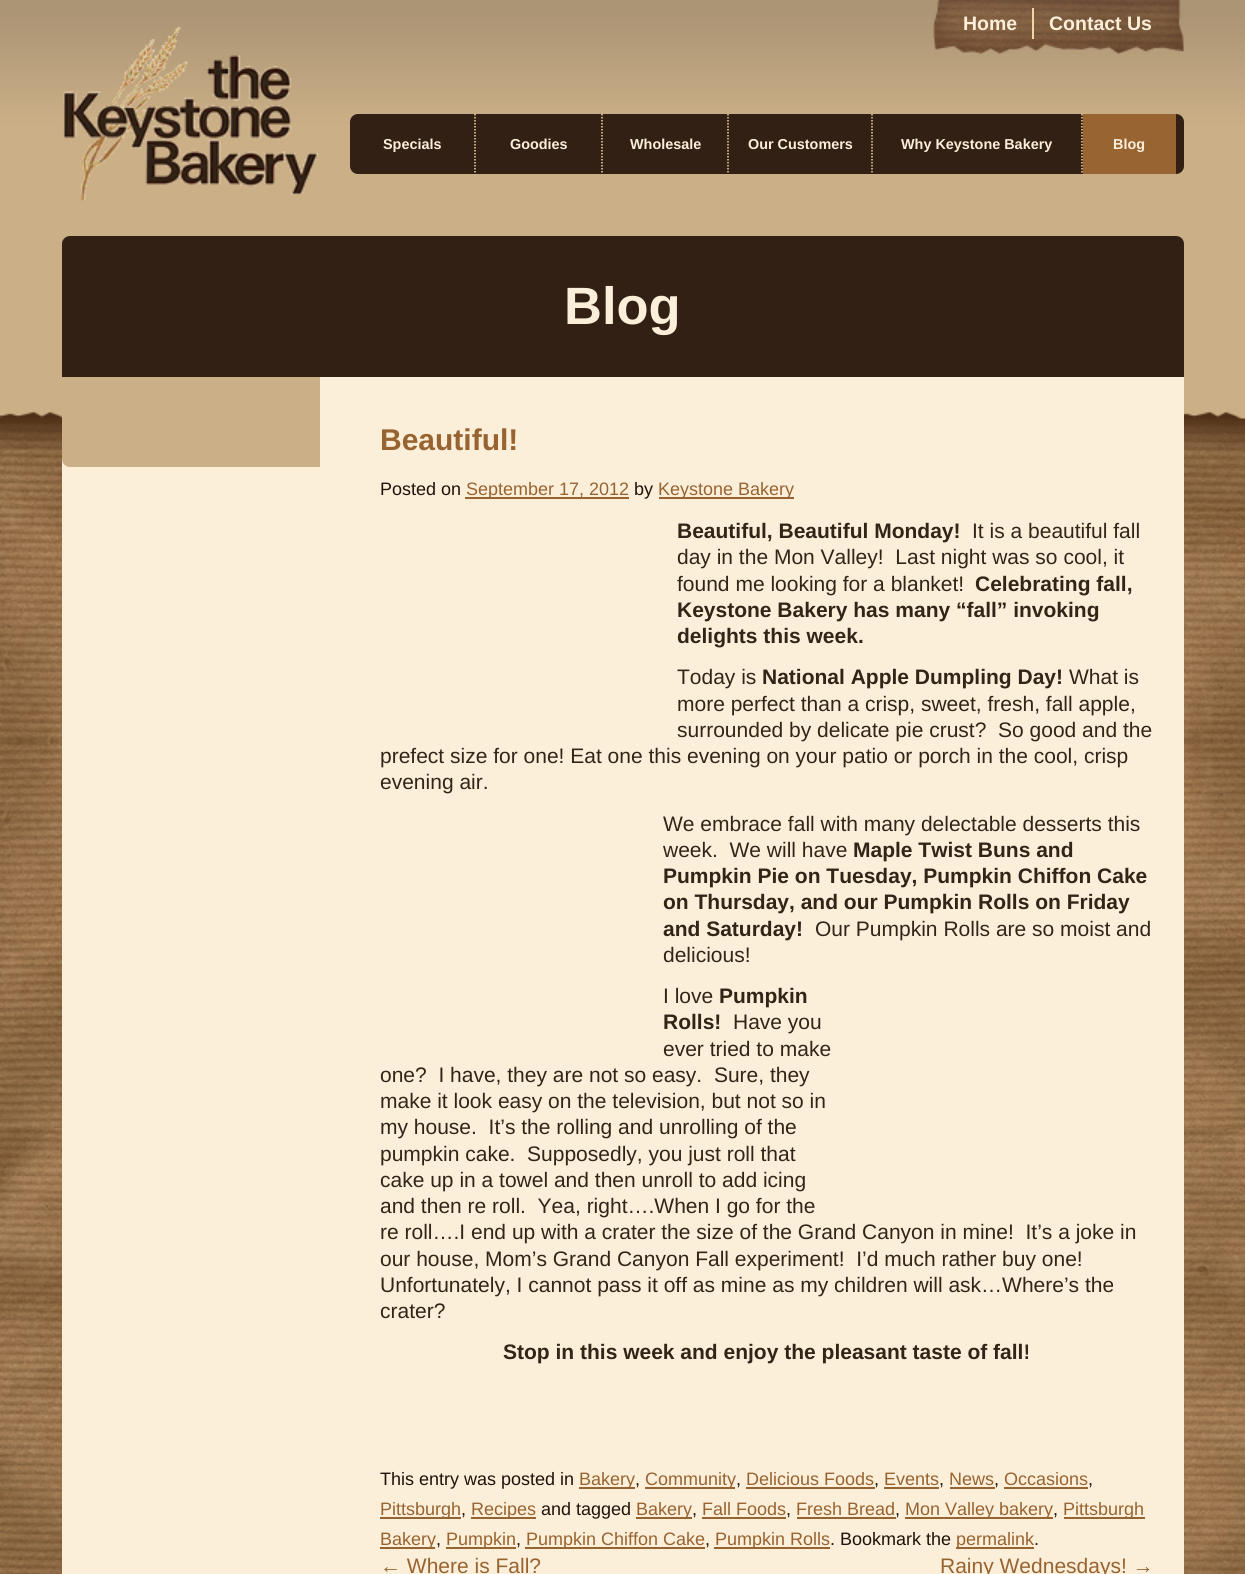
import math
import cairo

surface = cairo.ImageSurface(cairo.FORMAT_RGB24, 1245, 1574)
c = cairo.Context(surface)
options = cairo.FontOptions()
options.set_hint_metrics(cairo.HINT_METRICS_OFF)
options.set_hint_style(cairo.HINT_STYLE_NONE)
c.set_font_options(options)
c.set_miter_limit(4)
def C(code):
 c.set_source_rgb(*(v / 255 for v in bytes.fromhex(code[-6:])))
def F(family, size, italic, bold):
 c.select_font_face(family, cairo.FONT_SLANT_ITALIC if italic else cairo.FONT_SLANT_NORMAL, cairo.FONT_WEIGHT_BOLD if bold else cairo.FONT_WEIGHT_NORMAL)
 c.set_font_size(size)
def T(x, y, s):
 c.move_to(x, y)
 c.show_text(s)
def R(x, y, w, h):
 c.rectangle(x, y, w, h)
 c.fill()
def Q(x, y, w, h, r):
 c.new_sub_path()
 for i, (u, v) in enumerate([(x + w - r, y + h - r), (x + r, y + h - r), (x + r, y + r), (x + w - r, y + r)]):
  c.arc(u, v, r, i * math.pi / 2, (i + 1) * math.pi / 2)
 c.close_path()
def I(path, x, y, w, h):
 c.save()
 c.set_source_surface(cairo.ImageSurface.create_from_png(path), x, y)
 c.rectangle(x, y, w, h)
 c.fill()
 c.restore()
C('ffffff')
c.paint()
I('1.png',0,416,1245,1158)
I('2.png',0,0,1245,450)
I('3.png',933,0,251,54)
C('f1d5a6')
R(1032,8,2,31)
F('Liberation Sans',19.5,0,1)
C('fcefd9')
T(963,30,'Home')
T(1049,30,'Contact Us')
I('4.png',63,26,255,175)
C('312013')
Q(350,114,834,60,8)
c.fill()
c.new_path()
c.move_to(475,114)
c.line_to(475,174)
C('f1d5a6')
c.set_line_width(1.5)
c.set_dash([1.5,1.5])
c.stroke()
F('Liberation Sans',14.4,0,1)
C('fcefd9')
T(383,149,'Specials')
c.new_path()
c.move_to(602,114)
c.line_to(602,174)
C('f1d5a6')
c.stroke()
C('fcefd9')
T(510,149,'Goodies')
c.new_path()
c.move_to(728,114)
c.line_to(728,174)
C('f1d5a6')
c.stroke()
C('fcefd9')
T(630,149,'Wholesale')
c.new_path()
c.move_to(872,114)
c.line_to(872,174)
C('f1d5a6')
c.stroke()
C('fcefd9')
T(748,149,'Our Customers')
c.new_path()
c.move_to(1082,114)
c.line_to(1082,174)
C('f1d5a6')
c.stroke()
C('fcefd9')
T(901,149,'Why Keystone Bakery')
C('986432')
R(1083,114,93,60)
C('fcefd9')
T(1113,149,'Blog')
C('312013')
c.new_path()
c.move_to(70,236)
c.line_to(1176,236)
c.curve_to(1180.5,236,1184,239.5,1184,244)
c.line_to(1184,377)
c.line_to(62,377)
c.line_to(62,244)
c.curve_to(62,239.5,65.5,236,70,236)
c.close_path()
c.fill()
F('Liberation Sans',52.5,0,1)
C('fcefd9')
T(564,324,'Blog')
R(62,377,1122,1197)
C('cbb087')
c.new_path()
c.move_to(62,377)
c.line_to(320,377)
c.line_to(320,467)
c.line_to(70,467)
c.curve_to(65.5,467,62,463.5,62,459)
c.close_path()
c.fill()
F('Liberation Sans',30,0,1)
C('976331')
T(380,450,'Beautiful!')
F('Liberation Sans',18,0,0)
C('1e130b')
T(380,495,'Posted on')
C('976331')
R(465,497,164,2)
T(466,495,'September 17, 2012')
C('1e130b')
T(634,495,'by')
C('976331')
R(659,497,135,2)
T(658,495,'Keystone Bakery')
F('Liberation Sans',21,0,1)
C('332418')
T(677,538,'Beautiful, Beautiful Monday!')
F('Liberation Sans',21,0,0)
T(972,538,'It is a beautiful fall')
T(677,564,'day in the Mon Valley!  Last night was so cool, it')
T(677,591,'found me looking for a blanket!')
F('Liberation Sans',21,0,1)
T(975,591,'Celebrating fall,')
T(677,617,'Keystone Bakery has many “fall” invoking')
T(677,643,'delights this week.')
F('Liberation Sans',21,0,0)
T(677,684,'Today is')
F('Liberation Sans',21,0,1)
T(762,684,'National Apple Dumpling Day!')
F('Liberation Sans',21,0,0)
T(1069,684,'What is')
T(677,711,'more perfect than a crisp, sweet, fresh, fall apple,')
T(677,737,'surrounded by delicate pie crust?  So good and the')
T(380,763,'prefect size for one! Eat one this evening on your patio or porch in the cool, crisp')
T(380,789,'evening air.')
T(663,831,'We embrace fall with many delectable desserts this')
T(663,857,'week.  We will have')
F('Liberation Sans',21,0,1)
T(853,857,'Maple Twist Buns and')
T(663,883,'Pumpkin Pie on Tuesday, Pumpkin Chiffon Cake')
T(663,909,'on Thursday, and our Pumpkin Rolls on Friday')
T(663,936,'and Saturday!')
F('Liberation Sans',21,0,0)
T(815,936,'Our Pumpkin Rolls are so moist and')
T(663,962,'delicious!')
T(663,1003,'I love')
F('Liberation Sans',21,0,1)
T(719,1003,'Pumpkin')
T(663,1029,'Rolls!')
F('Liberation Sans',21,0,0)
T(733,1029,'Have you')
T(663,1056,'ever tried to make')
T(380,1082,'one?  I have, they are not so easy.  Sure, they')
T(380,1108,'make it look easy on the television, but not so in')
T(380,1134,'my house.  It’s the rolling and unrolling of the')
T(380,1161,'pumpkin cake.  Supposedly, you just roll that')
T(380,1187,'cake up in a towel and then unroll to add icing')
T(380,1213,'and then re roll.  Yea, right….When I go for the')
T(380,1239,'re roll….I end up with a crater the size of the Grand Canyon in mine!  It’s a joke in')
T(380,1266,'our house, Mom’s Grand Canyon Fall experiment!  I’d much rather buy one!')
T(380,1292,'Unfortunately, I cannot pass it off as mine as my children will ask…Where’s the')
T(380,1318,'crater?')
F('Liberation Sans',21,0,1)
T(503,1359,'Stop in this week and enjoy the pleasant taste of fall!')
F('Liberation Sans',18,0,0)
C('1e130b')
T(380,1485,'This entry was posted in')
C('976331')
R(579,1487,56,2)
T(579,1485,'Bakery')
C('1e130b')
T(635,1485,',')
C('976331')
R(645,1487,90,2)
T(645,1485,'Community')
C('1e130b')
T(736,1485,',')
C('976331')
T(746,1485,'Delicious Foods')
R(746,1487,129,2)
C('1e130b')
T(874,1485,',')
C('976331')
T(884,1485,'Events')
R(884,1487,55,2)
C('1e130b')
T(939,1485,',')
C('976331')
T(949,1485,'News')
R(950,1487,45,2)
C('1e130b')
T(994,1485,',')
C('976331')
T(1004,1485,'Occasions')
R(1004,1487,84,2)
C('1e130b')
T(1088,1485,',')
C('976331')
R(380,1517,81,2)
T(380,1515,'Pittsburgh')
C('1e130b')
T(461,1515,',')
C('976331')
R(471,1517,65,2)
T(471,1515,'Recipes')
C('1e130b')
T(541,1515,'and tagged')
C('976331')
R(636,1517,56,2)
T(636,1515,'Bakery')
C('1e130b')
T(692,1515,',')
C('976331')
T(702,1515,'Fall Foods')
R(702,1517,84,2)
C('1e130b')
T(786,1515,',')
C('976331')
T(796,1515,'Fresh Bread')
R(797,1517,99,2)
C('1e130b')
T(895,1515,',')
C('976331')
R(905,1517,148,2)
T(905,1515,'Mon Valley bakery')
C('1e130b')
T(1053,1515,',')
C('976331')
R(1064,1517,81,2)
T(1063,1515,'Pittsburgh')
R(380,1547,55,2)
T(380,1545,'Bakery')
C('1e130b')
T(436,1545,',')
C('976331')
R(446,1547,70,2)
T(446,1545,'Pumpkin')
C('1e130b')
T(516,1545,',')
C('976331')
R(525,1547,180,2)
T(526,1545,'Pumpkin Chiffon Cake')
C('1e130b')
T(705,1545,',')
C('976331')
R(714,1547,116,2)
T(715,1545,'Pumpkin Rolls')
C('1e130b')
T(830,1545,'. Bookmark the')
C('976331')
R(956,1547,78,2)
T(956,1545,'permalink')
C('1e130b')
T(1034,1545,'.')
F('Liberation Sans',21,0,0)
C('976331')
T(380,1573,'← Where is Fall?')
T(940,1573,'Rainy Wednesdays! →')
surface.write_to_png('o.png')
